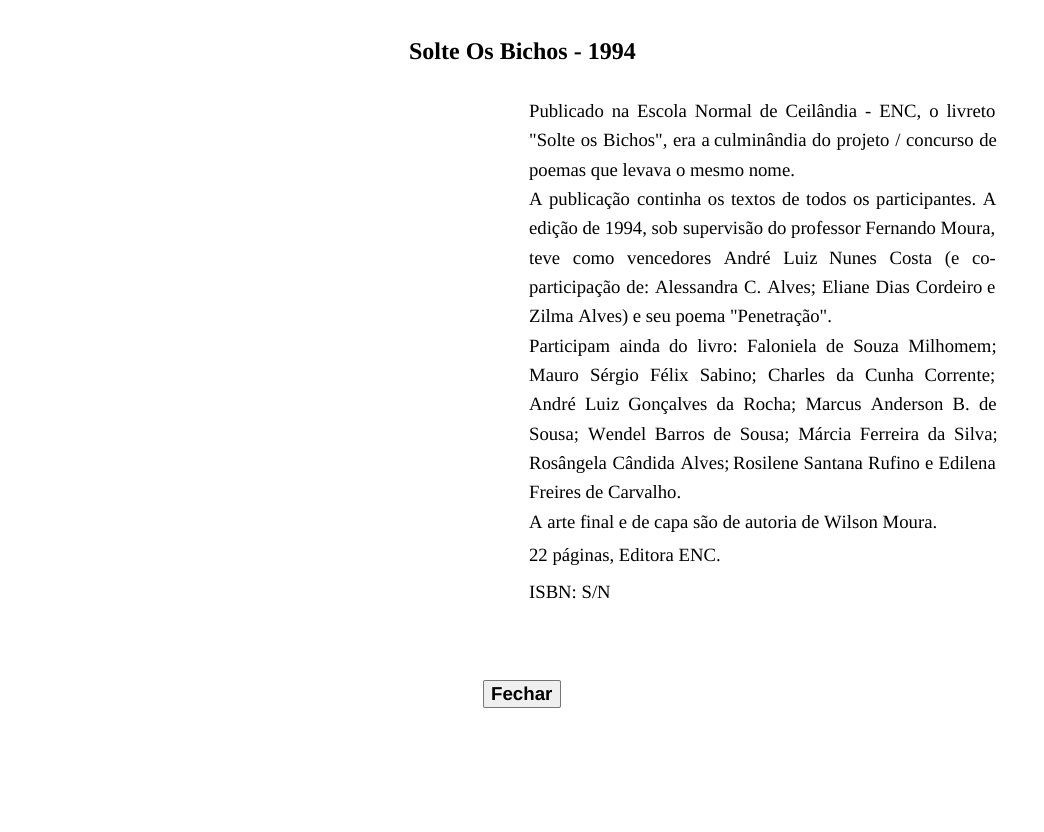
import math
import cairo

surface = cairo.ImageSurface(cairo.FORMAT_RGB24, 1044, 832)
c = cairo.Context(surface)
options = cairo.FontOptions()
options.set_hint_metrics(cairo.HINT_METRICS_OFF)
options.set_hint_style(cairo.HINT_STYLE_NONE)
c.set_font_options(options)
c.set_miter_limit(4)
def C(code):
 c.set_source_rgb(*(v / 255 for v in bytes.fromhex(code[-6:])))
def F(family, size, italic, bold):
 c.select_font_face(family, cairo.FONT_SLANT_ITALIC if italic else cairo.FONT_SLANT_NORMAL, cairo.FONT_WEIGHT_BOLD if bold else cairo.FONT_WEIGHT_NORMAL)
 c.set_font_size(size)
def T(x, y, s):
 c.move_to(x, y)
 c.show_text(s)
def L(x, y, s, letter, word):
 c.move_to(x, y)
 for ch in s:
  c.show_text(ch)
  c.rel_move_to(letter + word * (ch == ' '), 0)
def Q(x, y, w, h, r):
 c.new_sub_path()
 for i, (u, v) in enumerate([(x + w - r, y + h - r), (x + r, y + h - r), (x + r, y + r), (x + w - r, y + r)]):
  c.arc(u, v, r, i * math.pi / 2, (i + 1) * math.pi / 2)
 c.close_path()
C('ffffff')
c.paint()
F('Liberation Serif',24,0,1)
C('000000')
T(409,59,'Solte Os Bichos - 1994')
F('Liberation Serif',18.7,0,0)
L(529,117,'Publicado na',0,3.25)
L(637,117,'Escola Normal de Ceilândia - ENC, o livreto',0,3.25)
L(529,146,'"Solte os Bichos", era a',0,1)
L(714,146,'culminândia do projeto / concurso de',0,1)
T(529,176,'poemas que levava o mesmo nome.')
L(529,205,'A publicação',0,1.75)
L(637,205,'continha os textos de todos os participantes. A',0,1.75)
T(529,234,'edição de 1994, sob')
T(683,234,'supervisão do professor Fernando Moura,')
L(529,264,'teve como vencedores André Luiz',0,8)
L(829,264,'Nunes Costa (e co-',0,8)
L(529,293,'participação de: Alessandra C. Alves; Eliane Dias Cordeiro',0,1.25)
T(987,293,'e')
T(529,322,'Zilma Alves) e seu poema "Penetração".')
L(529,352,'Participam ainda',0,4.75)
L(669,352,'do livro: Faloniela de Souza Milhomem;',0,4.75)
L(529,381,'Mauro Sérgio Félix Sabino; Charles da',0,6.5)
L(865,381,'Cunha Corrente;',0,6)
L(529,410,'André Luiz Gonçalves da Rocha; Marcus Anderson B. de',0,4.5)
T(529,440,'Sousa;')
L(588,440,'Wendel Barros de Sousa; Márcia Ferreira da Silva;',0,4)
L(529,469,'Rosângela Cândida Alves;',0,1)
L(733,469,'Rosilene Santana Rufino e Edilena',0,.5)
T(529,498,'Freires de Carvalho.')
T(529,528,'A arte final e de capa são de autoria de Wilson Moura.')
T(529,561,'22 páginas, Editora ENC.')
T(529,598,'ISBN: S/N')
C('efefef')
Q(483.5,680.5,77,27,1.5)
c.fill_preserve()
C('767676')
c.set_line_width(1)
c.stroke()
F('Liberation Sans',18.7,0,1)
C('000000')
T(491,700,'Fechar')
surface.write_to_png('o.png')
